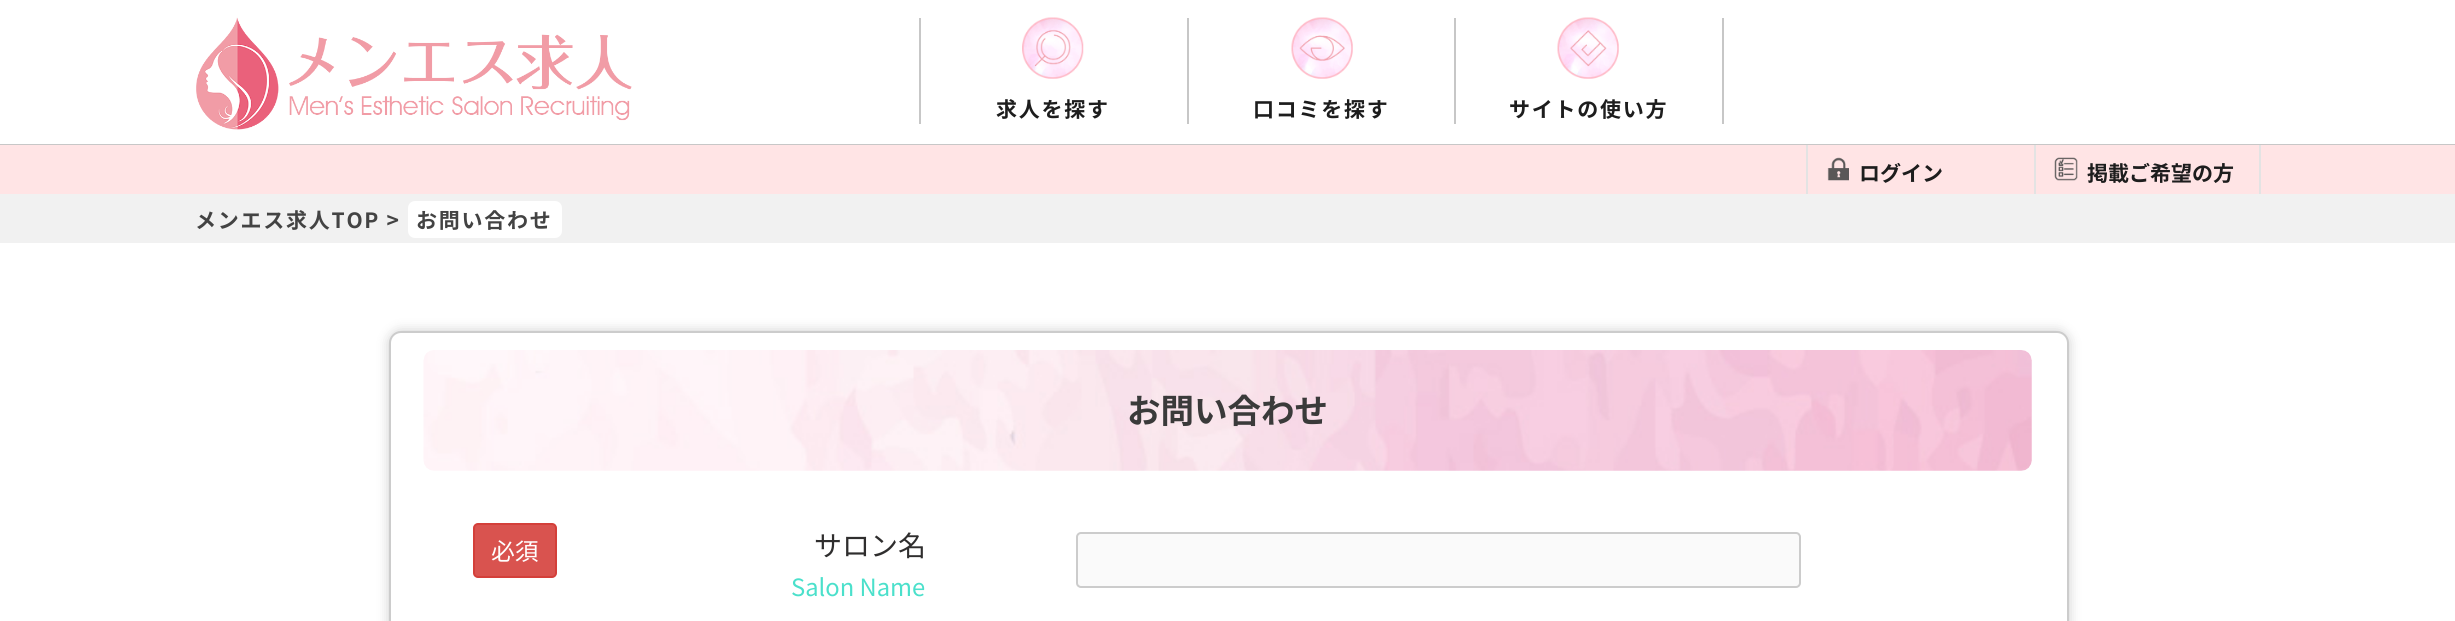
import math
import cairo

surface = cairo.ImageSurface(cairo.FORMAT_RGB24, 2455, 621)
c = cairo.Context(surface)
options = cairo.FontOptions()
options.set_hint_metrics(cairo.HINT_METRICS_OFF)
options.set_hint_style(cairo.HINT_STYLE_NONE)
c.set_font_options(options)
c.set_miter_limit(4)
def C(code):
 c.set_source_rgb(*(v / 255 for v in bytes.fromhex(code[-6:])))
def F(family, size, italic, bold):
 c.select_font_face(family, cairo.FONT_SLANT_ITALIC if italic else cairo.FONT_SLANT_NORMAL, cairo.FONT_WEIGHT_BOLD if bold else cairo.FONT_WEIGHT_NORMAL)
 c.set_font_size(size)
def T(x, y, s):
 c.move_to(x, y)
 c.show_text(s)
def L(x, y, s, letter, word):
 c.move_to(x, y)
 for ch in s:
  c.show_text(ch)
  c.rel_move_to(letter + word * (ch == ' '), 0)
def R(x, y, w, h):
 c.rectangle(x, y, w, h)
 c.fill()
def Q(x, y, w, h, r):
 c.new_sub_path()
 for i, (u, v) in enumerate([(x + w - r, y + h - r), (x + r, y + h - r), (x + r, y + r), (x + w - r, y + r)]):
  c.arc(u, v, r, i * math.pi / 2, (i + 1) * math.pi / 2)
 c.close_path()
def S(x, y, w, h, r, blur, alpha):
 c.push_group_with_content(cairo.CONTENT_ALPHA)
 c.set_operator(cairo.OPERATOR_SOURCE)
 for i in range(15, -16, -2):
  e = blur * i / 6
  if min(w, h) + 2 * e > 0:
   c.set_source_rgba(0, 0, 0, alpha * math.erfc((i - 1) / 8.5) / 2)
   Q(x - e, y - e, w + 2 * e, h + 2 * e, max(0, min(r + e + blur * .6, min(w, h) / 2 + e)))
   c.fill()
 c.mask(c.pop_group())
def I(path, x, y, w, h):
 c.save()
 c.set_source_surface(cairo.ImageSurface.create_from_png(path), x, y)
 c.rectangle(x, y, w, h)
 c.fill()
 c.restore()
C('ffffff')
c.paint()
C('c7c7c7')
R(0,144,2455,1)
I('1.png',196,17,436,113)
I('2.png',1022,17,62,62)
R(919,18,2,106)
F('Noto Sans JP',21,0,1)
C('1d1d1d')
L(996,117,'求人を探す',1.75,0)
I('3.png',1291,17,62,62)
C('c7c7c7')
R(1187,18,2,106)
C('1d1d1d')
L(1253,117,'口コミを探す',1.75,0)
I('4.png',1557,17,62,62)
C('c7c7c7')
R(1722,18,2,106)
R(1454,18,2,106)
C('1d1d1d')
L(1509,117,'サイトの使い方',1.75,0)
C('ffe4e5')
R(0,145,2455,49)
I('5.png',1827,157,22,24)
C('e3e3e3')
R(1806,145,2,49)
C('1d1d1d')
T(1859,181,'ログイン')
I('6.png',2054,157,24,24)
C('e3e3e3')
R(2259,145,2,49)
R(2034,145,2,49)
C('1d1d1d')
T(2087,181,'掲載ご希望の方')
C('f1f1f1')
R(0,194,2455,49)
C('434343')
L(195,228,'メンエス求人TOP >',1.75,0)
C('ffffff')
Q(408,201,154,37,7)
c.fill()
C('434343')
L(416,228,'お問い合わせ',1.75,0)
C('000000')
S(389,331,1680,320,12,6,.2)
C('ffffff')
Q(390,332,1678,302,11)
c.fill_preserve()
C('cccccc')
c.stroke()
I('7.png',423,350,1609,121)
F('Noto Sans JP',33.5,0,1)
C('3a3a3a')
T(1127,423,'お問い合わせ')
C('d9534f')
Q(474,524,82,53,4)
c.fill_preserve()
C('d43f3a')
c.stroke()
F('Noto Sans JP',23.75,0,0)
C('ffffff')
T(491,560,'必須')
F('Noto Sans JP',28,0,0)
C('2f2e2e')
T(814,556,'サロン名')
F('Noto Sans JP',23.75,0,0)
C('4be0cb')
T(791,596,'Salon Name')
C('fafafa')
Q(1077,533,723,54,4)
c.fill_preserve()
C('cccccc')
c.stroke()
surface.write_to_png('o.png')
